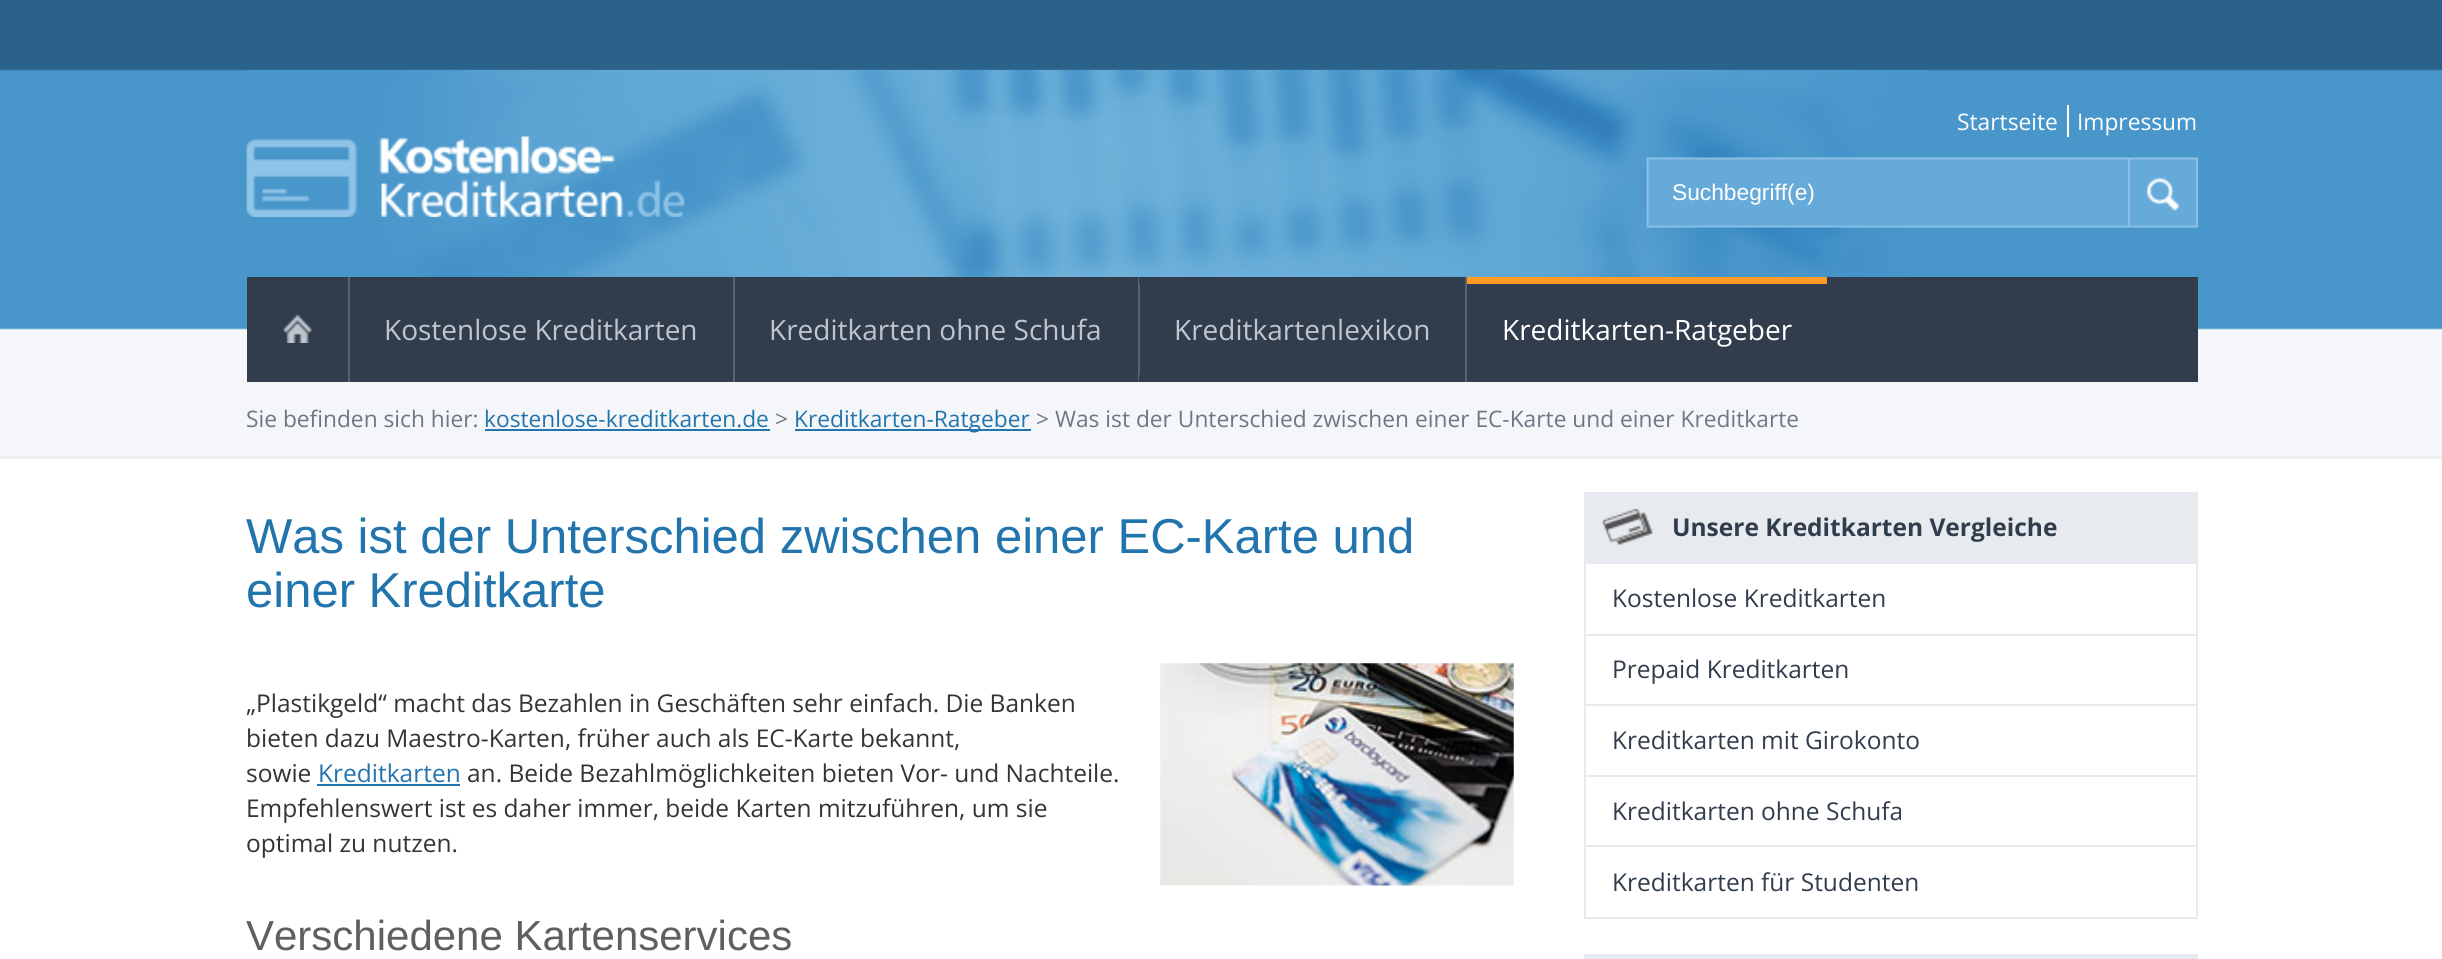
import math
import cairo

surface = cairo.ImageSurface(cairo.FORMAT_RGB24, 2442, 959)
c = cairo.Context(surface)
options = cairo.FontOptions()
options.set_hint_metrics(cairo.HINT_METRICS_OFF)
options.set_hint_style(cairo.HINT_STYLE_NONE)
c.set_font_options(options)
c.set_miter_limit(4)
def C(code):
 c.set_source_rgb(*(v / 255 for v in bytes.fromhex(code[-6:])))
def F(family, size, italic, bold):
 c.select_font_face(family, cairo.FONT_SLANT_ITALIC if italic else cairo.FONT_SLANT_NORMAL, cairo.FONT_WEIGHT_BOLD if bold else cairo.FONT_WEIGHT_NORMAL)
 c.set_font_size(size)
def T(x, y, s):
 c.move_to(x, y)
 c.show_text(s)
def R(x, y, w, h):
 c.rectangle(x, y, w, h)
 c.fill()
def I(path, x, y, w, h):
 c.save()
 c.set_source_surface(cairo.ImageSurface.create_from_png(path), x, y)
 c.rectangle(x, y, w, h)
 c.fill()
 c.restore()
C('ffffff')
c.paint()
I('1.png',0,0,2442,459)
I('2.png',246,70,1683,259)
F('Open Sans',22.75,0,0)
C('ffffff')
T(1957,130,'Startseite')
R(2067,105,2,32)
T(2077,130,'Impressum')
I('3.png',246,136,439,81)
I('4.png',1646,157,482,71)
F('Liberation Sans',22.75,0,0)
T(1672,200,'Suchbegriff(e)')
I('5.png',2128,157,70,71)
C('313d4c')
R(247,277,1951,105)
I('6.png',283,315,29,28)
C('576372')
R(348,277,2,105)
F('Open Sans',28,0,0)
C('bfc5cd')
T(384,340,'Kostenlose Kreditkarten')
C('576372')
R(733,277,2,105)
C('bfc5cd')
T(769,340,'Kreditkarten ohne Schufa')
C('576372')
R(1138,277,2,105)
C('313d4c')
R(1139,277,1,7)
R(1139,375,1,7)
C('bfc5cd')
T(1174,340,'Kreditkartenlexikon')
C('576372')
R(1465,277,2,105)
C('ff9b25')
R(1467,277,360,7)
C('ffffff')
T(1502,340,'Kreditkarten-Ratgeber')
F('Open Sans',22.75,0,0)
C('6c7786')
T(246,427,'Sie befinden sich hier:')
C('2274ad')
T(484,427,'kostenlose-kreditkarten.de')
R(485,429,285,2)
C('6c7786')
T(775,427,'>')
C('2274ad')
R(795,429,236,2)
T(794,427,'Kreditkarten-Ratgeber')
C('6c7786')
T(1036,427,'> Was ist der Unterschied zwischen einer EC-Karte und einer Kreditkarte')
F('Liberation Sans',49,0,0)
C('2274ad')
T(246,553,'Was ist der Unterschied zwischen einer EC-Karte und')
T(246,607,'einer Kreditkarte')
F('Open Sans',24.5,0,0)
C('343434')
T(246,712,'„Plastikgeld“ macht das Bezahlen in Geschäften sehr einfach. Die Banken')
I('7.png',1160,663,354,223)
T(246,747,'bieten dazu Maestro-Karten, früher auch als EC-Karte bekannt,')
T(246,782,'sowie')
C('2274ad')
T(318,782,'Kreditkarten')
R(317,784,143,2)
C('343434')
T(467,782,'an. Beide Bezahlmöglichkeiten bieten Vor- und Nachteile.')
T(246,817,'Empfehlenswert ist es daher immer, beide Karten mitzuführen, um sie')
T(246,852,'optimal zu nutzen.')
F('Liberation Sans',42,0,0)
C('5f5f5f')
T(246,950,'Verschiedene Kartenservices')
C('e7eaee')
R(1584,492,614,70)
I('8.png',1602,508,51,37)
F('Open Sans',24.5,0,1)
C('313d4c')
T(1672,536,'Unsere Kreditkarten Vergleiche')
c.rectangle(1585,563,612,355)
C('e7eaee')
c.stroke()
F('Open Sans',24.5,0,0)
C('313d4c')
T(1612,607,'Kostenlose Kreditkarten')
C('e7eaee')
R(1586,634,610,2)
C('313d4c')
T(1612,678,'Prepaid Kreditkarten')
C('e7eaee')
R(1586,704,610,2)
C('313d4c')
T(1612,749,'Kreditkarten mit Girokonto')
C('e7eaee')
R(1586,775,610,2)
C('313d4c')
T(1612,820,'Kreditkarten ohne Schufa')
C('e7eaee')
R(1586,845,610,2)
C('313d4c')
T(1612,891,'Kreditkarten für Studenten')
C('e7eaee')
R(1584,954,614,5)
surface.write_to_png('o.png')
